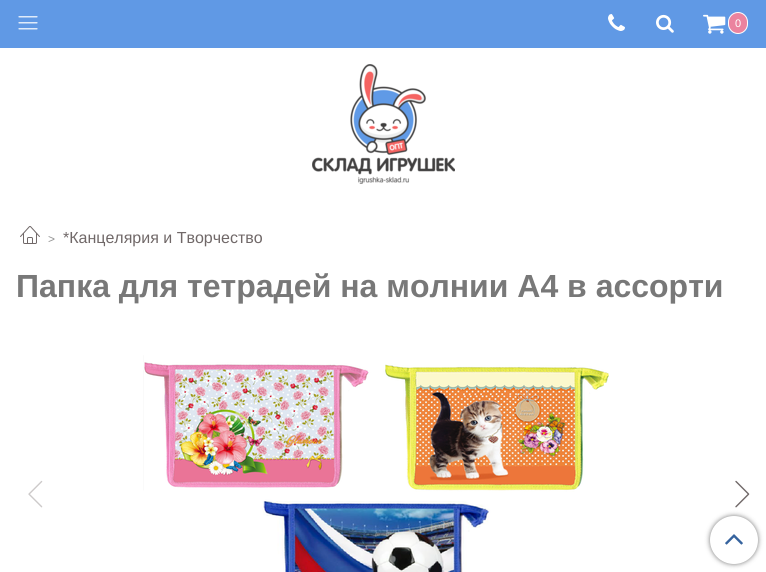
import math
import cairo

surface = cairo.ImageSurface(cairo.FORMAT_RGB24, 766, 572)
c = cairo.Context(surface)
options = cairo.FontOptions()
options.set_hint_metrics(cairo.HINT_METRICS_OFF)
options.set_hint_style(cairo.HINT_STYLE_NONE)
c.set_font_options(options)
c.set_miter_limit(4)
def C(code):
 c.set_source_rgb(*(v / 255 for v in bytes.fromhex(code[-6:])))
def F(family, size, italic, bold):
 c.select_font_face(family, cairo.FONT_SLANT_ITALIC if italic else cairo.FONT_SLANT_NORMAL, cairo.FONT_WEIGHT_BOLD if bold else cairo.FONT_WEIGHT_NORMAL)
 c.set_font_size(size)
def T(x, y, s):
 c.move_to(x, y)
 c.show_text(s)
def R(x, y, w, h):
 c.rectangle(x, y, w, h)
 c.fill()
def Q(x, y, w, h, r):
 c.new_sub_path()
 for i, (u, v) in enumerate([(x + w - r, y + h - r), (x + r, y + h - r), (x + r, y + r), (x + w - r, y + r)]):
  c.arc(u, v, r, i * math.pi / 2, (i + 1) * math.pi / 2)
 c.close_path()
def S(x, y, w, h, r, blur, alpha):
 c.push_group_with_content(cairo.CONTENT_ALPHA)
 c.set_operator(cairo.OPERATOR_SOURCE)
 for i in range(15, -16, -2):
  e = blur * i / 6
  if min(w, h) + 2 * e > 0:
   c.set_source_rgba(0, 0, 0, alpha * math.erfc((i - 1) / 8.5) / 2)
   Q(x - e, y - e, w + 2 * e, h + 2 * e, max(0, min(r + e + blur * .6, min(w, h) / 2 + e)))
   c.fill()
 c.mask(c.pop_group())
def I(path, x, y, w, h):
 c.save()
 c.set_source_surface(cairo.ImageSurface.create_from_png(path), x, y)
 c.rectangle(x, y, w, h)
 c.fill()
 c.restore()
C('ffffff')
c.paint()
C('6099e5')
R(0,0,766,48)
I('1.png',18,16,20,14)
I('2.png',608,14,17,17)
I('3.png',656,14,18,19)
I('4.png',703,14,23,20)
C('eb839f')
Q(728.5,12.5,19,21,9.5)
c.fill_preserve()
C('ffffff')
c.set_line_width(1)
c.stroke()
F('Liberation Sans',11,0,0)
T(735,27,'0')
I('5.png',312,64,143,120)
I('6.png',20,226,20,18)
F('Liberation Sans',12,0,0)
C('939393')
T(48,243,'>')
F('Liberation Sans',16,0,0)
C('706868')
T(63,243,'*Канцелярия и Творчество')
F('Liberation Sans',32,0,1)
C('787878')
T(16,297,'Папка для тетрадей на молнии А4 в ассорти')
I('7.png',143,355,466,217)
I('8.png',28,480,15,28)
I('9.png',735,480,15,28)
C('777777')
S(710,516,48,48,24,2.5,1)
C('ffffff')
c.arc(734,540,24,0,2 * math.pi)
c.fill()
I('10.png',725,534,18,11)
surface.write_to_png('o.png')
